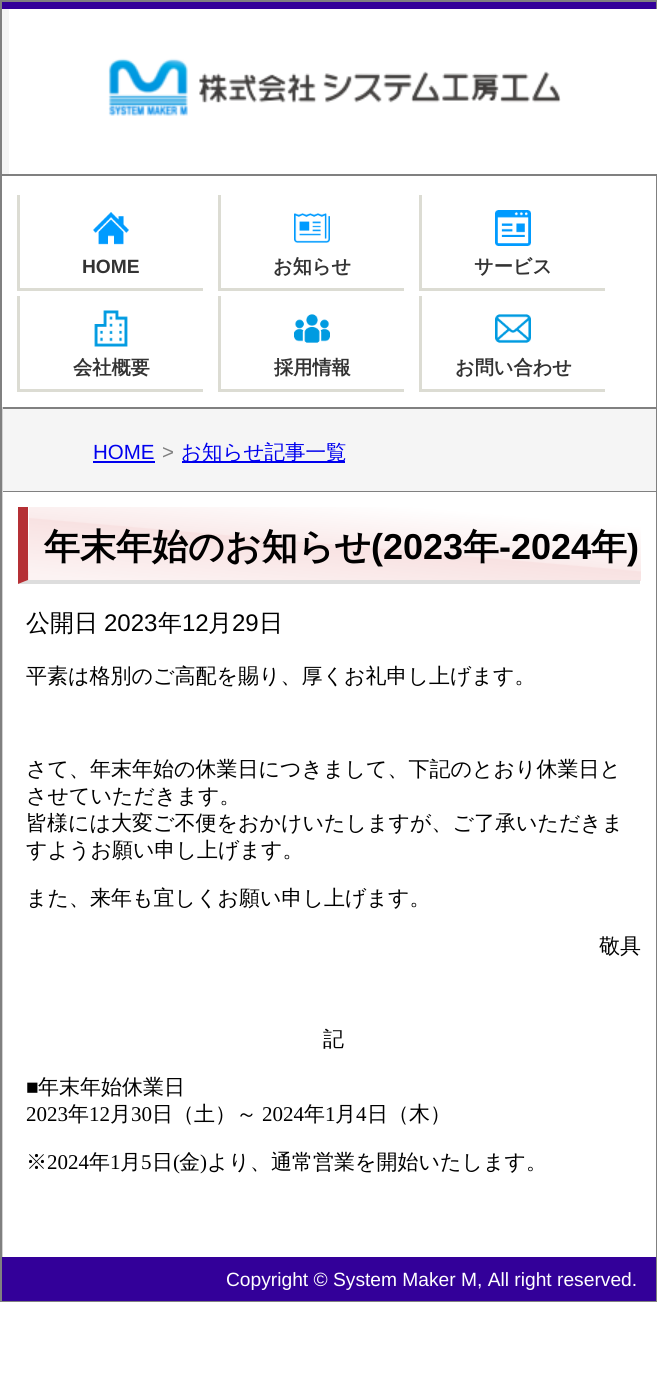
import math
import cairo

surface = cairo.ImageSurface(cairo.FORMAT_RGB24, 657, 1375)
c = cairo.Context(surface)
options = cairo.FontOptions()
options.set_hint_metrics(cairo.HINT_METRICS_OFF)
options.set_hint_style(cairo.HINT_STYLE_NONE)
c.set_font_options(options)
c.set_miter_limit(4)
def C(code):
 c.set_source_rgb(*(v / 255 for v in bytes.fromhex(code[-6:])))
def F(family, size, italic, bold):
 c.select_font_face(family, cairo.FONT_SLANT_ITALIC if italic else cairo.FONT_SLANT_NORMAL, cairo.FONT_WEIGHT_BOLD if bold else cairo.FONT_WEIGHT_NORMAL)
 c.set_font_size(size)
def T(x, y, s):
 c.move_to(x, y)
 c.show_text(s)
def R(x, y, w, h):
 c.rectangle(x, y, w, h)
 c.fill()
def I(path, x, y, w, h):
 c.save()
 c.set_source_surface(cairo.ImageSurface.create_from_png(path), x, y)
 c.rectangle(x, y, w, h)
 c.fill()
 c.restore()
C('ffffff')
c.paint()
c.rectangle(1,1,655,1300)
C('808080')
c.stroke()
C('f5f5f5')
R(2,9,7,165)
C('330099')
R(2,2,654,7)
C('ffffff')
R(655,9,2,165)
I('1.png',108,58,453,58)
R(655,176,1,231)
C('808080')
R(2,174,654,2)
C('dcdcd3')
R(17,288,186,3)
R(17,195,3,96)
I('2.png',93,212,36,33)
F('Liberation Sans',19.2,0,1)
C('333333')
T(82,273,'HOME')
C('dcdcd3')
R(218,288,186,3)
R(218,195,3,96)
I('3.png',294,213,36,30)
F('WenQuanYi Zen Hei',19.2,0,1)
C('333333')
T(273,273,'お知らせ')
C('dcdcd3')
R(419,288,186,3)
R(419,195,3,96)
I('4.png',495,210,36,36)
C('333333')
T(474,273,'サービス')
C('dcdcd3')
R(17,389,186,3)
R(17,296,3,96)
I('5.png',94,310,34,37)
C('333333')
T(73,374,'会社概要')
C('dcdcd3')
R(218,389,186,3)
R(218,296,3,96)
I('6.png',294,314,36,29)
C('333333')
T(274,374,'採用情報')
C('dcdcd3')
R(419,389,186,3)
R(419,296,3,96)
I('7.png',495,314,36,29)
C('333333')
T(455,374,'お問い合わせ')
C('d3d3d3')
R(2,407,1,850)
C('f5f5f5')
R(3,409,653,82)
C('808080')
R(3,407,653,2)
R(3,491,653,1)
F('Liberation Sans',20.5,0,0)
C('0000ee')
T(93,459,'HOME')
R(93,461,62,2)
C('808080')
T(162,459,'>')
C('0000ee')
R(182,461,163,2)
F('WenQuanYi Zen Hei Medium',20.5,0,0)
T(181,459,'お知らせ記事一覧')
C('ffffff')
R(655,492,1,765)
gradient = cairo.LinearGradient(-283,607,-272,481)
gradient.add_color_stop_rgba(0,0.988,0.953,0.953,1)
gradient.add_color_stop_rgba(.05,0.988,0.953,0.953,1)
gradient.add_color_stop_rgba(.49,0.973,0.886,0.886,1)
gradient.add_color_stop_rgba(.5,0.98,0.922,0.922,1)
gradient.add_color_stop_rgba(.85,1,1,1,1)
c.set_source(gradient)
R(25,532,4,49)
gradient = cairo.LinearGradient(329,607,340,481)
gradient.add_color_stop_rgba(0,0.988,0.953,0.953,1)
gradient.add_color_stop_rgba(.05,0.988,0.953,0.953,1)
gradient.add_color_stop_rgba(.49,0.973,0.886,0.886,1)
gradient.add_color_stop_rgba(.5,0.98,0.922,0.922,1)
gradient.add_color_stop_rgba(.85,1,1,1,1)
c.set_source(gradient)
R(29,507,612,74)
C('dddddd')
c.new_path()
c.move_to(640,584)
c.line_to(18,584)
c.line_to(28,580)
c.line_to(640,580)
c.close_path()
c.fill()
C('b53035')
c.new_path()
c.move_to(18,584)
c.line_to(18,507)
c.line_to(28,507)
c.line_to(28,580)
c.close_path()
c.fill()
F('WenQuanYi Zen Hei',36,0,1)
C('000000')
T(44,559,'年末年始のお知らせ')
F('Liberation Sans',36,0,1)
T(371,559,'(2023')
F('WenQuanYi Zen Hei',36,0,1)
T(463,559,'年')
F('Liberation Sans',36,0,1)
T(499,559,'-2024')
F('WenQuanYi Zen Hei',36,0,1)
T(591,559,'年')
F('Liberation Sans',36,0,1)
T(627,559,')')
F('WenQuanYi Zen Hei Medium',24,0,0)
T(26,631,'公開日')
F('Liberation Sans',24,0,0)
T(104,631,'2023')
F('WenQuanYi Zen Hei Medium',24,0,0)
T(158,631,'年')
F('Liberation Sans',24,0,0)
T(182,631,'12')
F('WenQuanYi Zen Hei Medium',24,0,0)
T(208,631,'月')
F('Liberation Sans',24,0,0)
T(232,631,'29')
F('WenQuanYi Zen Hei Medium',24,0,0)
T(259,631,'日')
F('WenQuanYi Zen Hei Medium',21,0,0)
T(26,683,'平素は格別のご高配を賜り、厚くお礼申し上げます。')
T(26,776,'さて、年末年始の休業日につきまして、下記のとおり休業日と')
T(26,803,'させていただきます。')
T(26,830,'皆様には大変ご不便をおかけいたしますが、ご了承いただきま')
T(26,857,'すようお願い申し上げます。')
T(26,905,'また、来年も宜しくお願い申し上げます。')
T(599,953,'敬具')
T(323,1046,'記')
F('Liberation Serif',21,0,0)
T(26,1094,'■')
F('WenQuanYi Zen Hei Medium',21,0,0)
T(38,1094,'年末年始休業日')
F('Liberation Serif',21,0,0)
T(26,1121,'2023')
F('WenQuanYi Zen Hei Medium',21,0,0)
T(68,1121,'年')
F('Liberation Serif',21,0,0)
T(89,1121,'12')
F('WenQuanYi Zen Hei Medium',21,0,0)
T(110,1121,'月')
F('Liberation Serif',21,0,0)
T(131,1121,'30')
F('WenQuanYi Zen Hei Medium',21,0,0)
T(152,1121,'日（土）～')
F('Liberation Serif',21,0,0)
T(262,1121,'2024')
F('WenQuanYi Zen Hei Medium',21,0,0)
T(304,1121,'年')
F('Liberation Serif',21,0,0)
T(325,1121,'1')
F('WenQuanYi Zen Hei Medium',21,0,0)
T(335,1121,'月')
F('Liberation Serif',21,0,0)
T(356,1121,'4')
F('WenQuanYi Zen Hei Medium',21,0,0)
T(367,1121,'日（木）')
T(26,1169,'※')
F('Liberation Serif',21,0,0)
T(47,1169,'2024')
F('WenQuanYi Zen Hei Medium',21,0,0)
T(89,1169,'年')
F('Liberation Serif',21,0,0)
T(110,1169,'1')
F('WenQuanYi Zen Hei Medium',21,0,0)
T(120,1169,'月')
F('Liberation Serif',21,0,0)
T(141,1169,'5')
F('WenQuanYi Zen Hei Medium',21,0,0)
T(152,1169,'日')
F('Liberation Serif',21,0,0)
T(173,1169,'(')
F('WenQuanYi Zen Hei Medium',21,0,0)
T(179,1169,'金')
F('Liberation Serif',21,0,0)
T(200,1169,')')
F('WenQuanYi Zen Hei Medium',21,0,0)
T(207,1169,'より、通常営業を開始いたします。')
C('330099')
R(2,1257,654,44)
F('Liberation Sans',19.2,0,0)
C('ffffff')
T(226,1286,'Copyright © System Maker M, All right reserved.')
surface.write_to_png('o.png')
